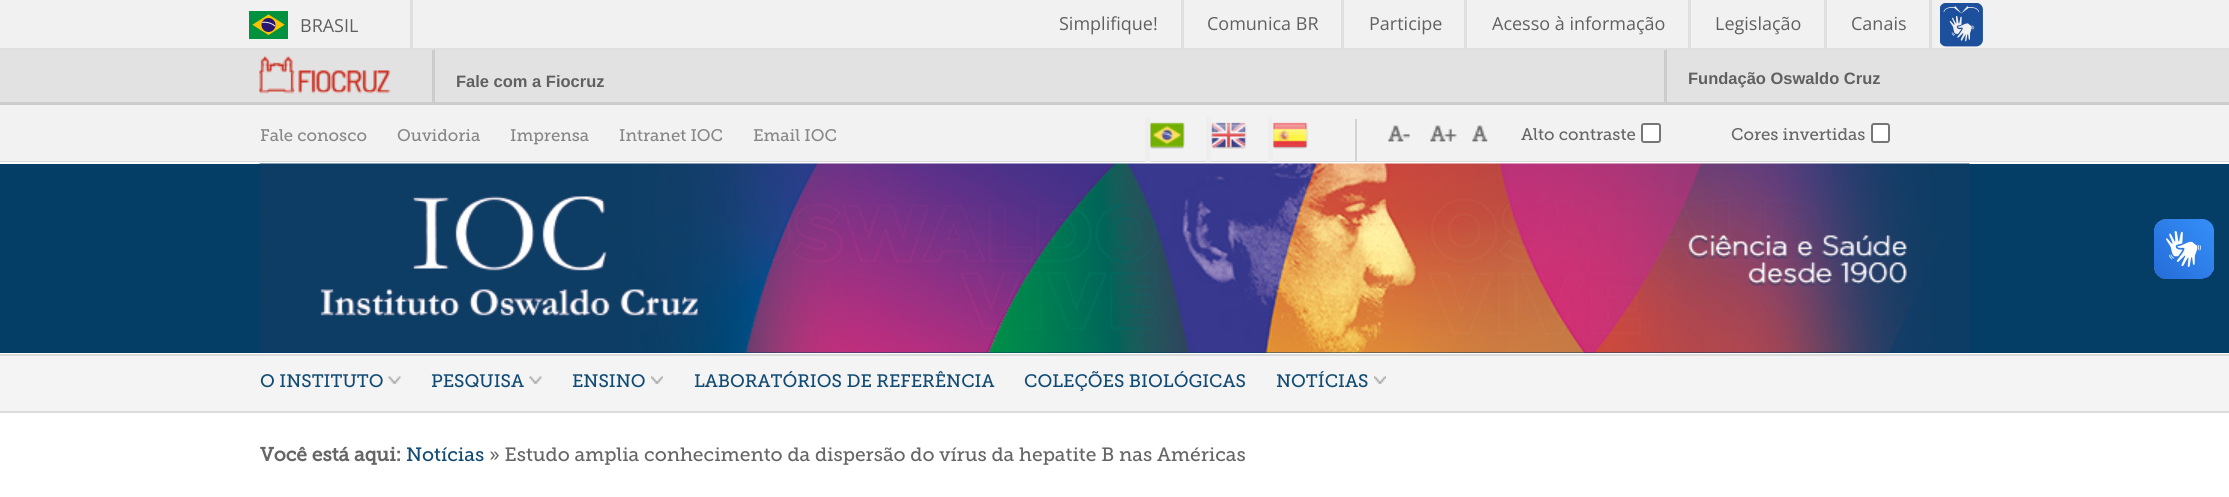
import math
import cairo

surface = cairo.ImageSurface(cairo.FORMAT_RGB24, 2229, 497)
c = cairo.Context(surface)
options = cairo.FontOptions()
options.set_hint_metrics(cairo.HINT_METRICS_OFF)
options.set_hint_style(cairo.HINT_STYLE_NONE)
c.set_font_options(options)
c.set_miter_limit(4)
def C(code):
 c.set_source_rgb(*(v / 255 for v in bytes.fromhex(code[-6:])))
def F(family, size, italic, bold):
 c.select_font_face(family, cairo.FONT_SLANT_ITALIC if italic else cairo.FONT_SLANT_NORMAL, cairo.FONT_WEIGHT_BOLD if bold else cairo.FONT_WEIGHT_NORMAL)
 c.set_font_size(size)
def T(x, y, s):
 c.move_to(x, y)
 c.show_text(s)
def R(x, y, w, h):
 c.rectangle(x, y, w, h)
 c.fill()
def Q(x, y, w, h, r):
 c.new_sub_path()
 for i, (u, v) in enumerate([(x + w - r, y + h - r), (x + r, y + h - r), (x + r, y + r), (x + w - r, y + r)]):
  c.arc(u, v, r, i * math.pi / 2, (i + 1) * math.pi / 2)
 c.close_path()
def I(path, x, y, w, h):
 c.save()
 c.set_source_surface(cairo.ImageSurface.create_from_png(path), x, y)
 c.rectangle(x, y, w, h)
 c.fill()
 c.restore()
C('ffffff')
c.paint()
C('f1f1f1')
R(0,0,2229,48)
C('dfdfdf')
R(0,48,2229,2)
R(410,0,3,48)
I('1.png',249,11,39,28)
F('Open Sans',18,0,0)
C('606060')
T(300,32,'BRASIL')
C('dfdfdf')
R(1181,0,3,48)
C('606060')
T(1059,30,'Simplifique!')
C('dfdfdf')
R(1341,0,3,48)
C('606060')
T(1207,30,'Comunica BR')
C('dfdfdf')
R(1464,0,3,48)
C('606060')
T(1369,30,'Participe')
C('dfdfdf')
R(1688,0,3,48)
C('606060')
T(1492,30,'Acesso à informação')
C('dfdfdf')
R(1824,0,3,48)
C('606060')
T(1715,30,'Legislação')
C('dfdfdf')
R(1929,0,3,48)
C('606060')
T(1851,30,'Canais')
I('2.png',1940,3,43,44)
C('e2e2e2')
R(0,50,2229,52)
C('cccccc')
R(0,102,2229,3)
I('3.png',259,55,132,39)
R(432,50,3,52)
F('Liberation Sans',16.5,0,1)
C('606060')
T(456,87,'Fale com a Fiocruz')
C('cccccc')
R(1664,50,3,52)
C('606060')
T(1688,84,'Fundação Oswaldo Cruz')
C('f2f2f2')
R(0,105,2229,56)
C('dadcdb')
R(0,161,2229,1)
F('Museo Slab',16.75,0,0)
C('878787')
T(260,141,'Fale conosco')
T(397,141,'Ouvidoria')
T(510,141,'Imprensa')
T(619,141,'Intranet IOC')
T(753,141,'Email IOC')
C('d3d3d3')
R(1355,119,2,42)
C('eeeeee')
R(1145,117,5,45)
I('4.png',1150,122,35,27)
R(1206,117,5,45)
I('5.png',1211,122,36,27)
R(1268,117,5,45)
I('6.png',1273,122,35,27)
I('7.png',1388,125,22,17)
I('8.png',1430,125,27,17)
I('9.png',1472,125,16,17)
C('666666')
T(1521,140,'Alto contraste')
C('ffffff')
Q(1642,124,18,18,2)
c.fill_preserve()
C('767676')
c.stroke()
C('666666')
T(1731,140,'Cores invertidas')
C('ffffff')
Q(1872,124,17,18,2)
c.fill_preserve()
C('767676')
c.stroke()
C('043e66')
R(0,164,2229,189)
I('10.png',259,163,1711,190)
I('11.png',2154,219,60,60)
I('12.png',2154,219,60,60)
C('f4f4f4')
R(0,356,2229,55)
C('dcdcdc')
R(0,354,2229,2)
R(0,411,2229,2)
I('13.png',388,376,13,8)
F('Museo Slab',18,0,0)
C('114b74')
T(260,387,'O INSTITUTO')
I('13.png',529,376,13,8)
T(431,387,'PESQUISA')
I('14.png',651,376,12,8)
T(572,387,'ENSINO')
T(694,387,'LABORATÓRIOS DE REFERÊNCIA')
T(1024,387,'COLEÇÕES BIOLÓGICAS')
I('14.png',1374,376,12,8)
T(1276,387,'NOTÍCIAS')
F('Museo Slab',19.2,0,1)
C('666666')
T(260,461,'Você está aqui:')
F('Museo Slab',19.2,0,0)
C('114b74')
T(406,461,'Notícias')
C('666666')
T(489,461,'» Estudo amplia conhecimento da dispersão do vírus da hepatite B nas Américas')
surface.write_to_png('o.png')
